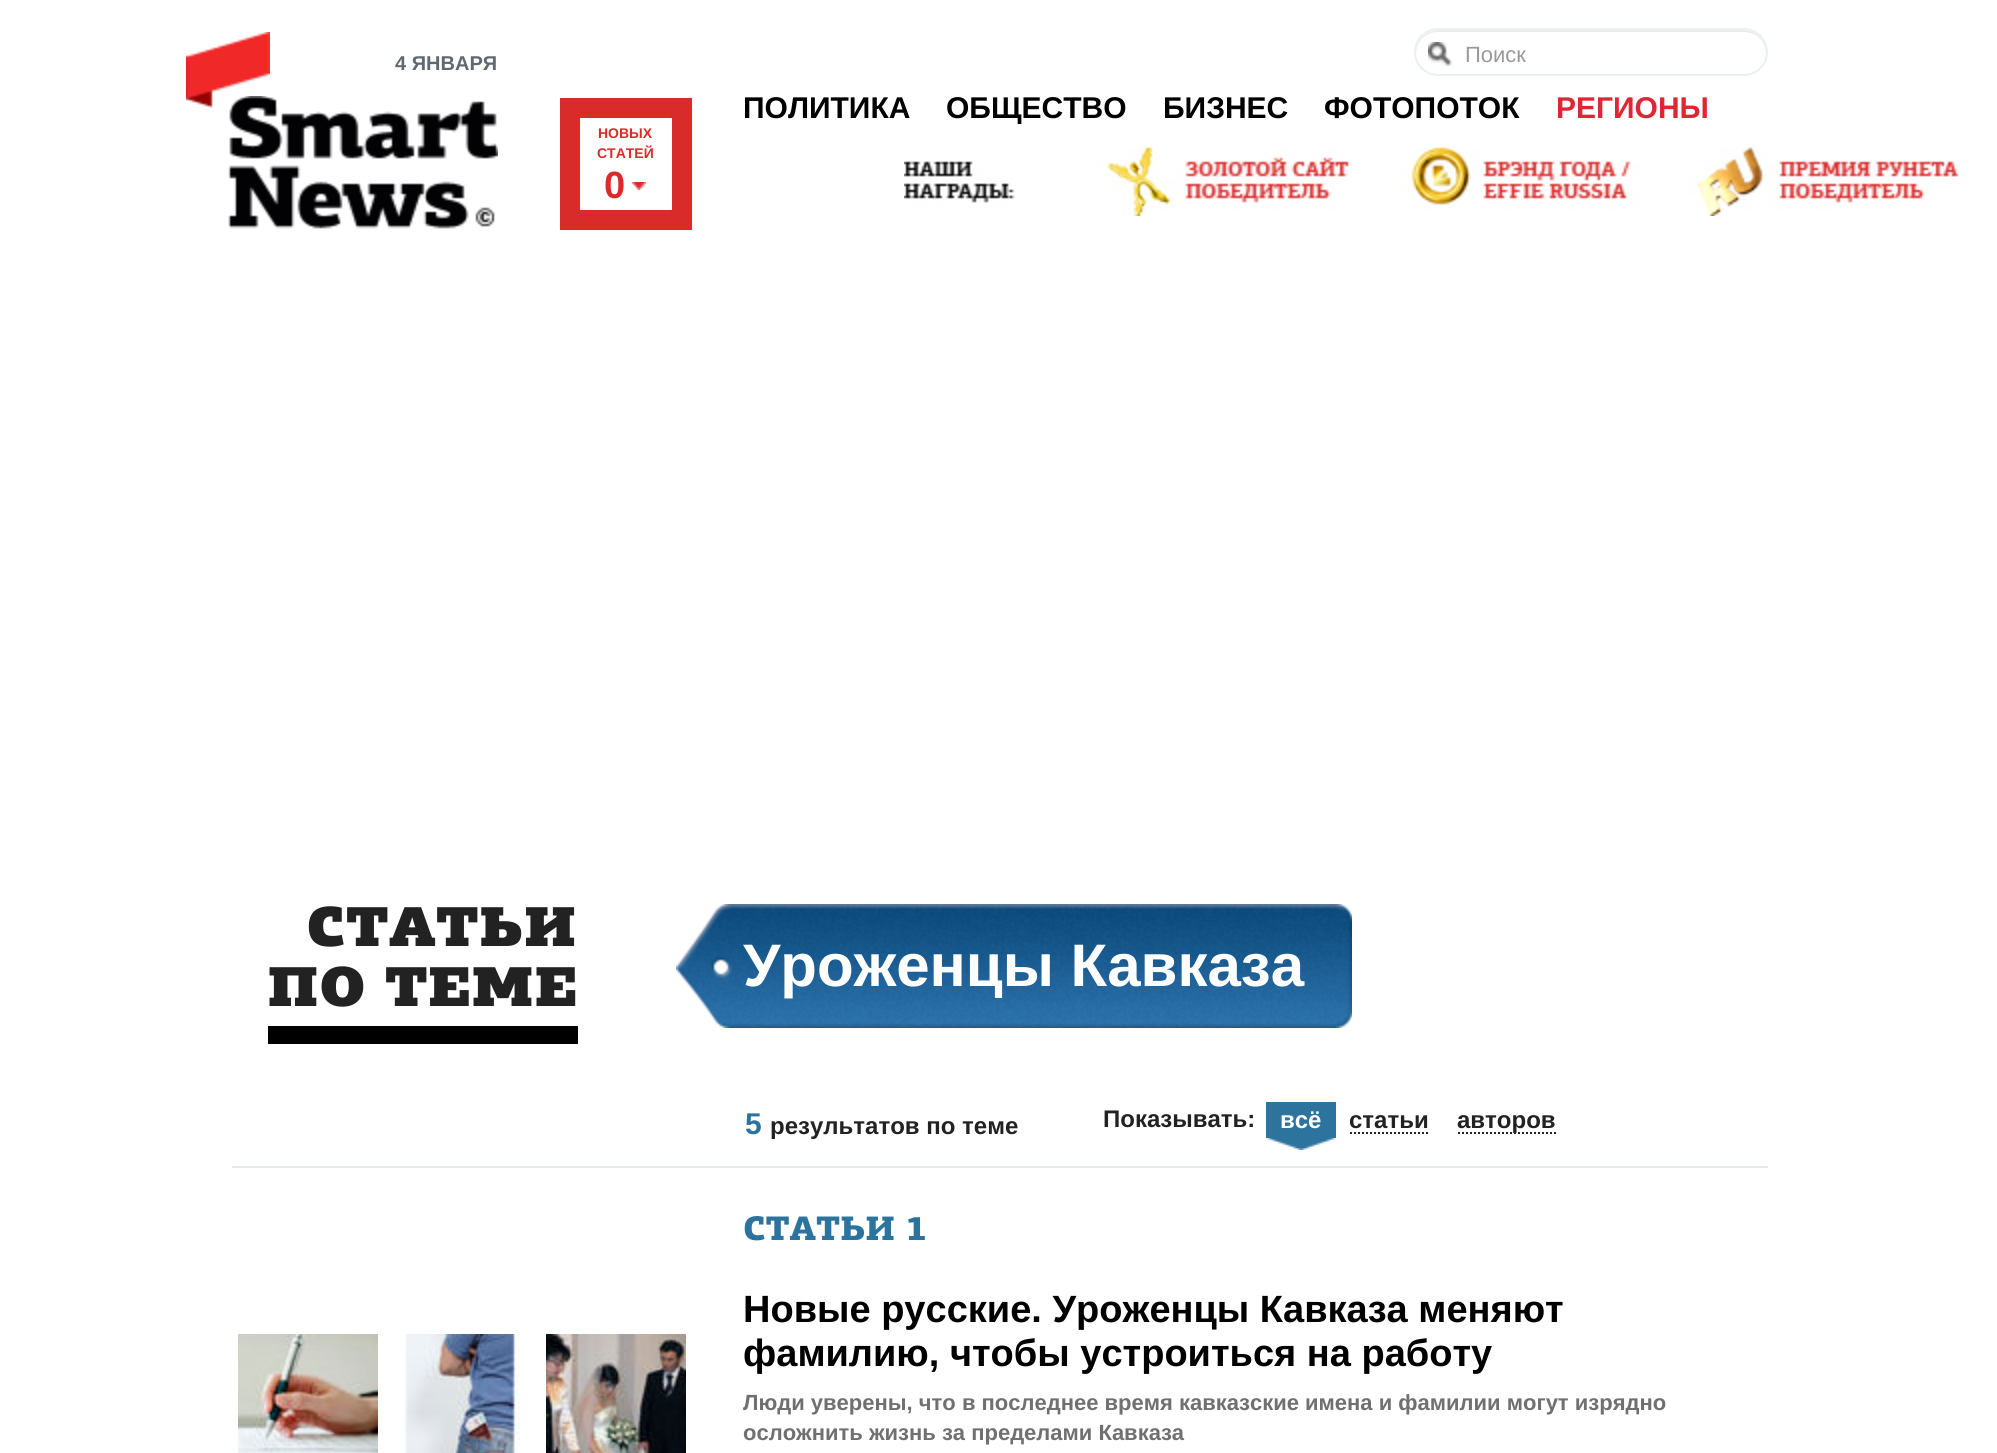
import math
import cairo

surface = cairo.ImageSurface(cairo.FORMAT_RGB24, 1997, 1453)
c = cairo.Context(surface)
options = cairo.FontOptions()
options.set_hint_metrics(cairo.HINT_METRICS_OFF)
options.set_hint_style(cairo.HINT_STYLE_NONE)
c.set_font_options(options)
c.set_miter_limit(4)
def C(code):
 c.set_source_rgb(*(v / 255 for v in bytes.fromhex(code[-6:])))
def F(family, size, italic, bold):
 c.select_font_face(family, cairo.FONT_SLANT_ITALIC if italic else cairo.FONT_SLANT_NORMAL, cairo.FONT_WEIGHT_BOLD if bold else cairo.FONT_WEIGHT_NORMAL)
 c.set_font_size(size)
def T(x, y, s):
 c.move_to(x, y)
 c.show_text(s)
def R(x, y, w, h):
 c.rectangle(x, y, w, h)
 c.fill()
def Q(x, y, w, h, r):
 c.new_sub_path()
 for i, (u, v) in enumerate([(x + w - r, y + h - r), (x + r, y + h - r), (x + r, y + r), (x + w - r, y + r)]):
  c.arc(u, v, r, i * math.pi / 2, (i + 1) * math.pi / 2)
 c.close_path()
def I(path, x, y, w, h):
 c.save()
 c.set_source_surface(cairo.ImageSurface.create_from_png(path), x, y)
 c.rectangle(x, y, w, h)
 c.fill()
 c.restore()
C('ffffff')
c.paint()
I('2.png',228,96,270,133)
I('1.png',186,32,84,76)
F('Liberation Sans',20,0,1)
C('5f6971')
T(395,70,'4 ЯНВАРЯ')
I('3.png',1428,42,25,24)
C('ececec')
c.new_path()
c.move_to(1438,32)
c.line_to(1744,32)
c.curve_to(1756,32,1765,41,1766,53)
c.curve_to(1767,41,1756,30,1744,30)
c.line_to(1438,30)
c.curve_to(1426,30,1415,41,1416,53)
c.curve_to(1417,41,1426,32,1438,32)
c.close_path()
c.fill()
Q(1415,29,352,46,23)
C('ecf0f2')
c.stroke()
F('Liberation Sans',22,0,0)
C('999999')
T(1465,62,'Поиск')
F('Liberation Sans',30,0,1)
C('000000')
T(743,118,'ПОЛИТИКА')
T(946,118,'ОБЩЕСТВО')
T(1163,118,'БИЗНЕС')
T(1324,118,'ФОТОПОТОК')
C('de2734')
T(1556,118,'РЕГИОНЫ')
c.rectangle(570,108,112,112)
C('da2b2b')
c.set_line_width(20)
c.stroke()
F('Liberation Sans',14,0,1)
T(598,138,'НОВЫХ')
T(597,158,'СТАТЕЙ')
F('Liberation Sans',38,0,1)
T(604,198,'0')
I('4.png',632,182,14,8)
I('5.png',904,147,1055,69)
C('e2e9ef')
R(232,1166,1536,2)
C('000000')
R(268,1026,310,18)
F('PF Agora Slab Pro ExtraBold',56,0,0)
C('222222')
T(306,946,'СТАТЬИ')
T(267,1006,'ПО ТЕМЕ')
I('6.png',734,904,618,124)
I('7.png',676,904,58,124)
F('Liberation Sans',60,0,1)
C('ffffff')
T(743,986,'Уроженцы Кавказа')
F('Liberation Sans',30,0,1)
C('2c749e')
T(745,1134,'5')
F('Liberation Sans',24,0,1)
C('222222')
T(770,1134,'результатов по теме')
T(1103,1127,'Показывать:')
C('2c749e')
R(1266,1102,70,36)
C('ffffff')
T(1280,1128,'всё')
I('8.png',1266,1138,70,12)
c.new_path()
c.move_to(1350,1133)
c.line_to(1430,1133)
C('222222')
c.set_line_width(2)
c.set_dash([2,2])
c.stroke()
T(1349,1128,'статьи')
c.new_path()
c.move_to(1458,1133)
c.line_to(1556,1133)
c.stroke()
T(1457,1128,'авторов')
F('PF Agora Slab Pro Black',34,0,0)
C('2c749e')
T(743,1240,'СТАТЬИ 1')
I('9.png',238,1334,140,119)
I('10.png',404,1334,116,119)
I('11.png',546,1334,140,119)
F('Liberation Sans',38,0,1)
C('000000')
T(743,1322,'Новые русские. Уроженцы Кавказа меняют')
T(743,1366,'фамилию, чтобы устроиться на работу')
F('Liberation Sans',22,0,1)
C('707070')
T(743,1410,'Люди уверены, что в последнее время кавказские имена и фамилии могут изрядно')
T(743,1440,'осложнить жизнь за пределами Кавказа')
surface.write_to_png('o.png')
